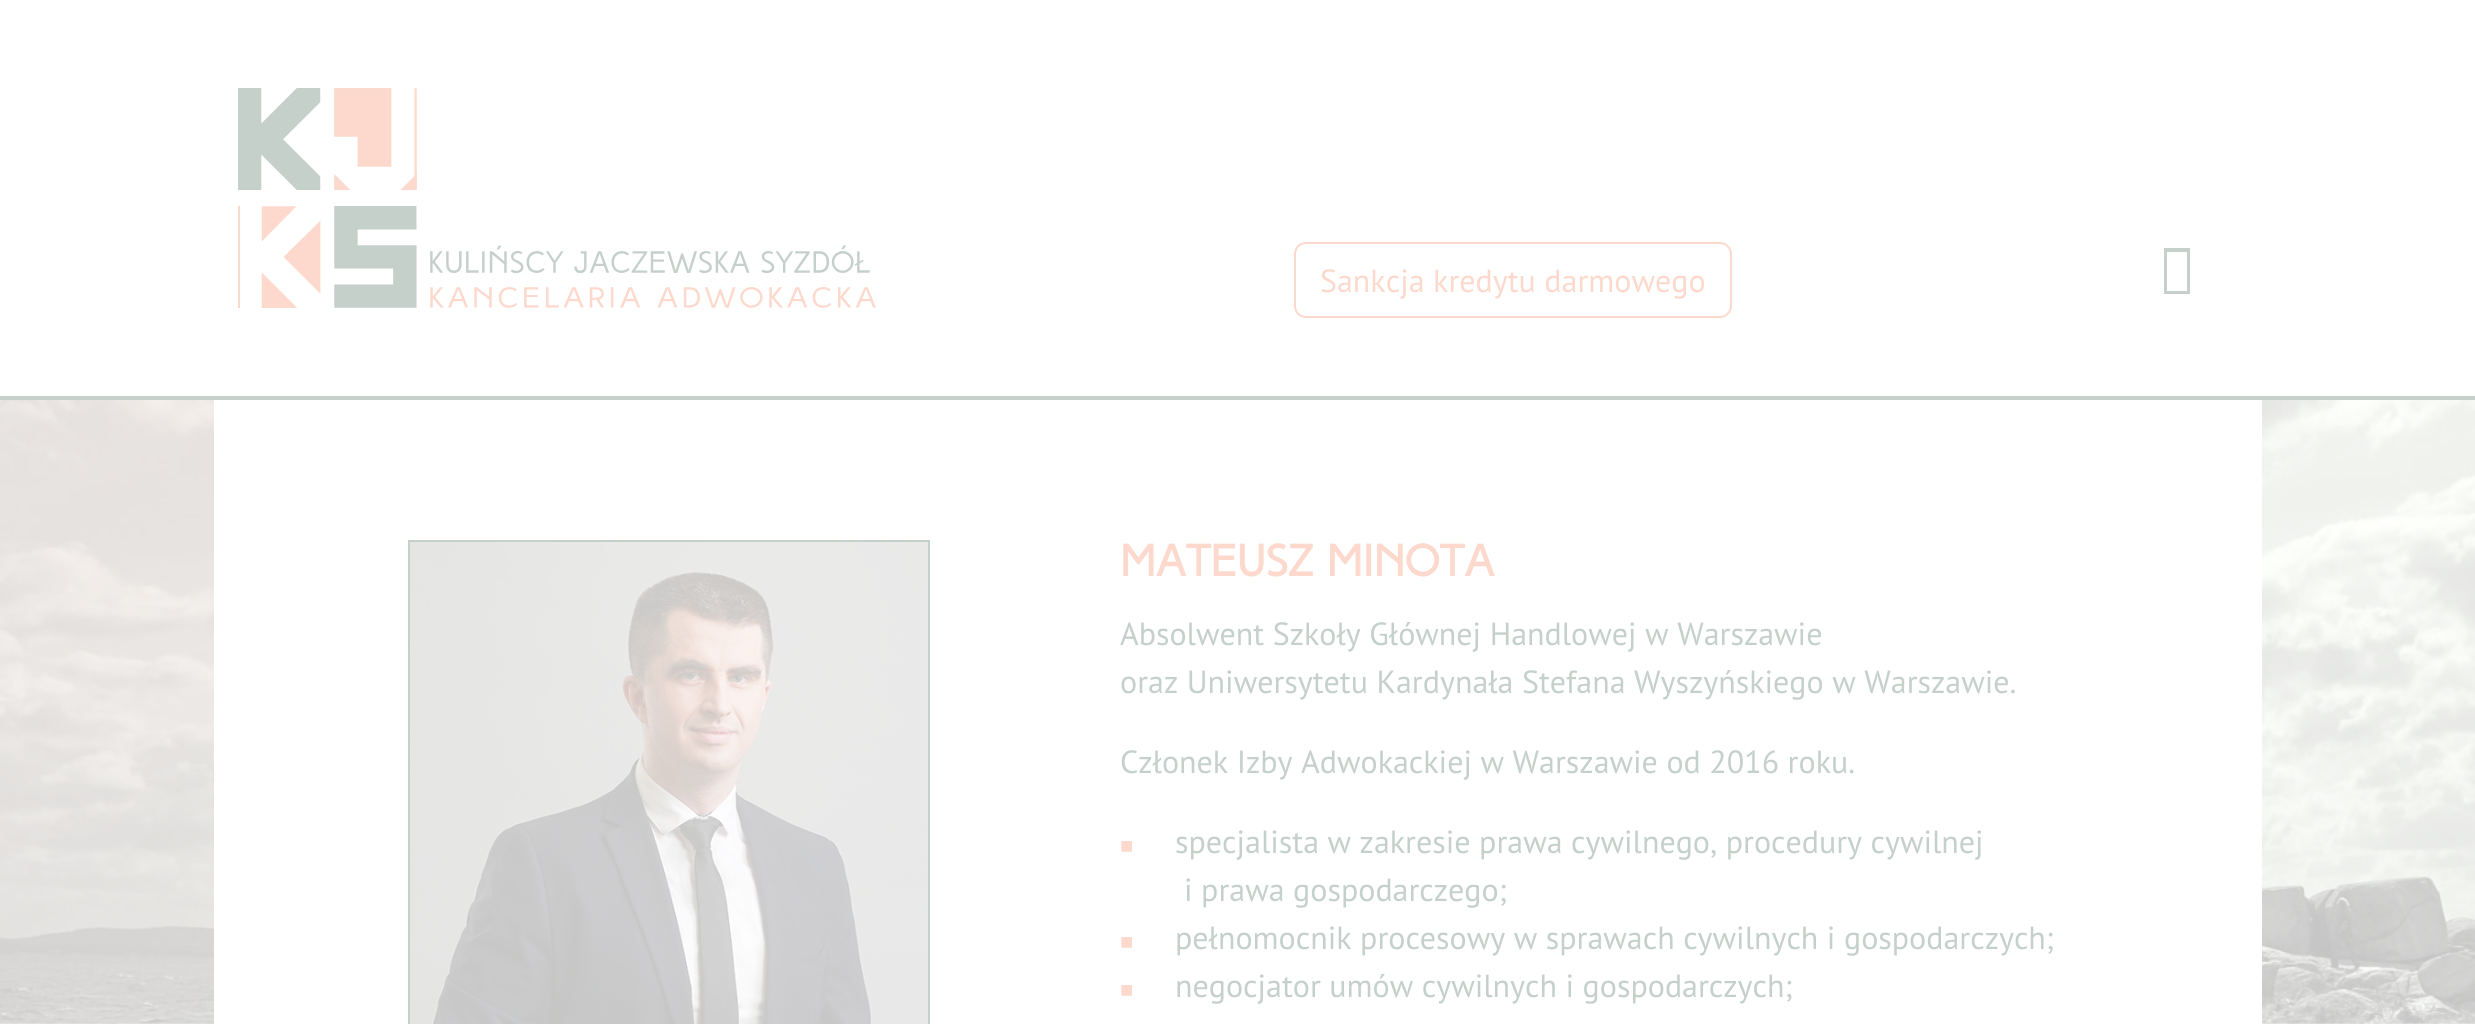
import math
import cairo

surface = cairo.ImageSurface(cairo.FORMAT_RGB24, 2475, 1024)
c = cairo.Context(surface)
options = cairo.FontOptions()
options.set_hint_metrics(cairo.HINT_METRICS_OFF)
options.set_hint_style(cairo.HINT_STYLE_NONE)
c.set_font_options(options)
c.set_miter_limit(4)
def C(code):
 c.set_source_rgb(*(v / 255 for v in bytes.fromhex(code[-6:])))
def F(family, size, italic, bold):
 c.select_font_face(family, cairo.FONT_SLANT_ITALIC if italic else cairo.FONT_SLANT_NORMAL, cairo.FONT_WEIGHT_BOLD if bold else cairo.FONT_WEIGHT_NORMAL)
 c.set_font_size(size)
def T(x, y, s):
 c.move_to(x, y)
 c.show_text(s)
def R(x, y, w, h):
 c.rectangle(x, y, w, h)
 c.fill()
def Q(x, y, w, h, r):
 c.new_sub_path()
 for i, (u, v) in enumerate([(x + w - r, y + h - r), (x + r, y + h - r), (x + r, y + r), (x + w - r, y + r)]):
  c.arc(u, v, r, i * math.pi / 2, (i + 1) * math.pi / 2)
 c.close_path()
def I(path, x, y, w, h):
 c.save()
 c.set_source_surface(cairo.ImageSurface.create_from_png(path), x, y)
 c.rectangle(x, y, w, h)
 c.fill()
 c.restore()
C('ffffff')
c.paint()
I('1.png',0,400,2475,624)
C('c6d0cb')
R(0,396,2475,4)
I('2.png',238,88,638,220)
Q(1295,243,436,74,11)
C('fcd9cc')
c.stroke()
F('PT Sans',32,0,0)
T(1320,292,'Sankcja kredytu darmowego')
C('c6d0cb')
c.new_path()
c.move_to(2164,294)
c.line_to(2164,248)
c.line_to(2190,248)
c.line_to(2190,294)
c.close_path()
c.move_to(2167,291)
c.line_to(2187,291)
c.line_to(2187,252)
c.line_to(2167,252)
c.close_path()
c.fill()
C('ffffff')
R(214,400,2048,624)
c.rectangle(409,541,520,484)
C('c6d0cb')
c.stroke()
I('3.png',410,542,518,482)
F('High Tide',44.4,0,1)
C('fcd9cc')
T(1120,576,'MATEUSZ MINOTA')
F('PT Sans',32,0,0)
C('c6d0cb')
T(1120,645,'Absolwent Szkoły Głównej Handlowej w Warszawie')
T(1120,693,'oraz Uniwersytetu Kardynała Stefana Wyszyńskiego w Warszawie.')
T(1120,773,'Członek Izby Adwokackiej w Warszawie od 2016 roku.')
F('Liberation Sans',22,0,0)
C('fcd9cc')
T(1120,853,'■')
F('PT Sans',32,0,0)
C('c6d0cb')
T(1175,853,'specjalista w zakresie prawa cywilnego, procedury cywilnej')
T(1184,901,'i prawa gospodarczego;')
F('Liberation Sans',22,0,0)
C('fcd9cc')
T(1120,949,'■')
F('PT Sans',32,0,0)
C('c6d0cb')
T(1175,949,'pełnomocnik procesowy w sprawach cywilnych i gospodarczych;')
F('Liberation Sans',22,0,0)
C('fcd9cc')
T(1120,997,'■')
F('PT Sans',32,0,0)
C('c6d0cb')
T(1175,997,'negocjator umów cywilnych i gospodarczych;')
surface.write_to_png('o.png')
